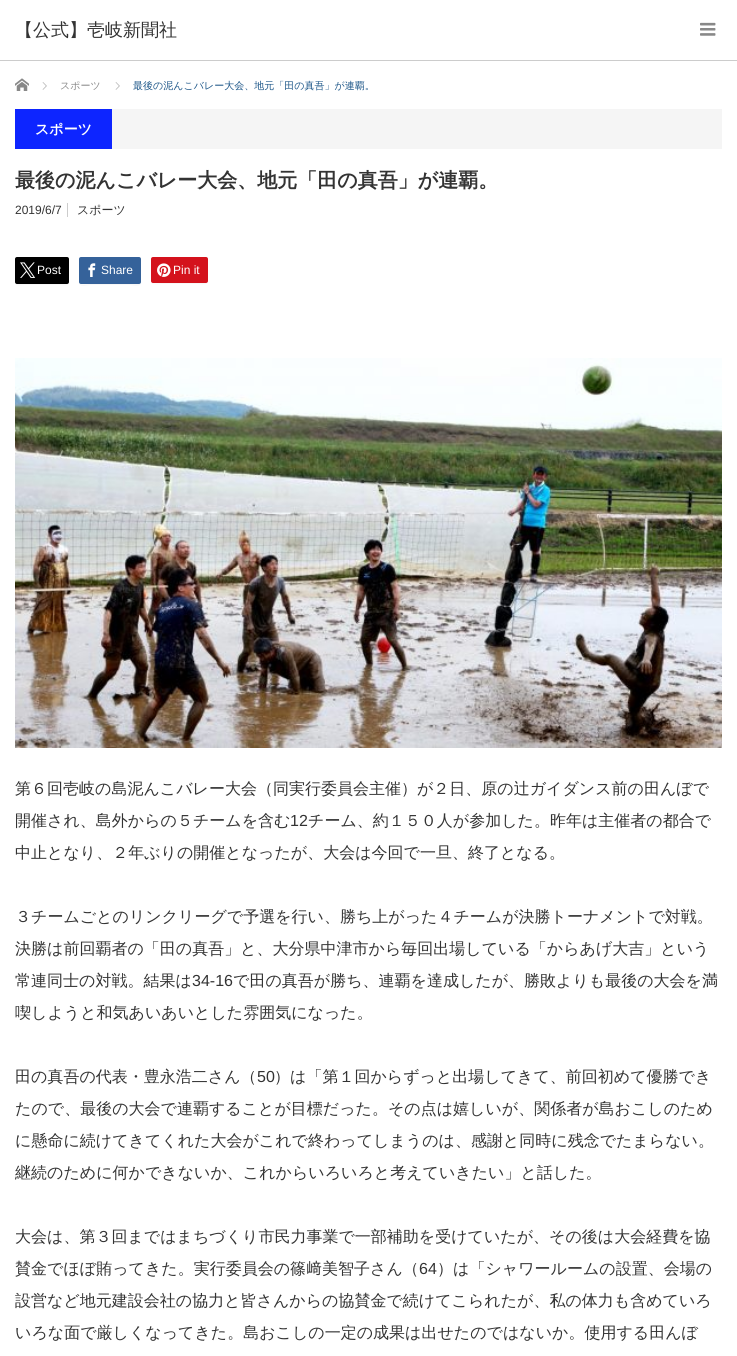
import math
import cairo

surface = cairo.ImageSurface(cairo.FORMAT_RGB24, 737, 1356)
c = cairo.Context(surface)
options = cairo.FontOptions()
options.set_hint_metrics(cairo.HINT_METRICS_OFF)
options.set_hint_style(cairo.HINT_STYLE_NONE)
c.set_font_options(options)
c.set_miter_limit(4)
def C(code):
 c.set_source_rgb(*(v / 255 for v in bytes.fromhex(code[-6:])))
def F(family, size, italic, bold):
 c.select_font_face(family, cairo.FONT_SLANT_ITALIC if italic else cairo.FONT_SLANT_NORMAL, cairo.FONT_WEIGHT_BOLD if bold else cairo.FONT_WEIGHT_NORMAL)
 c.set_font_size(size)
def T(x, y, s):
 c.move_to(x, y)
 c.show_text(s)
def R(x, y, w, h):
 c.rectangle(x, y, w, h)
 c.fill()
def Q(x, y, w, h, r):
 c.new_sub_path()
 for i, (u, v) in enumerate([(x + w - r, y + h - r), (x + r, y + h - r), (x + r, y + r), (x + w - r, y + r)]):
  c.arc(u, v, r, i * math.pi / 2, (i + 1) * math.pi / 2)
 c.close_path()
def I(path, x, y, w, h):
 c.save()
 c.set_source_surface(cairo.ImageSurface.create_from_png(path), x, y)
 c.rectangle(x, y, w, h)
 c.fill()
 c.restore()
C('ffffff')
c.paint()
C('cccccc')
R(0,60,737,1)
F('WenQuanYi Zen Hei Medium',18,0,0)
C('333333')
T(15,36,'【公式】壱岐新聞社')
I('1.png',700,22,16,14)
I('2.png',15,78,14,13)
I('3.png',42,82,5,8)
F('WenQuanYi Zen Hei Medium',10,0,0)
C('888888')
T(60,89,'スポーツ')
I('3.png',115,82,5,8)
C('1a5487')
T(133,89,'最後の泥んこバレー大会、地元「田の真吾」が連覇。')
C('f5f5f5')
R(112,109,610,40)
C('0d25ff')
R(15,109,97,40)
F('WenQuanYi Zen Hei',14,0,1)
C('ffffff')
T(35,134,'スポーツ')
F('WenQuanYi Zen Hei',20,0,1)
C('333333')
T(15,187,'最後の泥んこバレー大会、地元「田の真吾」が連覇。')
F('Liberation Sans',12,0,0)
T(15,214,'2019/6/7')
C('cccccc')
R(67,203,1,14)
F('WenQuanYi Zen Hei Medium',12,0,0)
C('333333')
T(77,214,'スポーツ')
C('f7f7f7')
c.new_path()
c.move_to(15,282)
c.curve_to(15,287,21,285,25,285)
c.line_to(59,285)
c.curve_to(63,285,69,287,69,282)
c.line_to(68,284)
c.line_to(16,284)
c.close_path()
c.fill()
C('000000')
Q(15,257,54,27,2)
c.fill()
I('4.png',20,262,16,16)
F('Liberation Sans',12,0,0)
C('ffffff')
T(37,274,'Post')
C('f7f7f7')
c.new_path()
c.move_to(79,282)
c.curve_to(79,288,87,285,91,285)
c.line_to(129,285)
c.curve_to(133,285,141,288,141,282)
c.line_to(140,284)
c.line_to(91,284)
c.curve_to(87,284,79,286,79,282)
c.close_path()
c.fill()
C('35629a')
Q(79,257,62,27,2)
c.fill()
I('5.png',88,263,8,14)
C('ffffff')
T(101,274,'Share')
C('f7f7f7')
c.new_path()
c.move_to(151,281)
c.curve_to(151,286,158,284,162,284)
c.line_to(197,284)
c.curve_to(201,284,208,286,208,281)
c.line_to(207,283)
c.line_to(162,283)
c.curve_to(158,283,151,285,151,281)
c.close_path()
c.fill()
C('d4121c')
Q(151,257,57,26,2)
c.fill()
I('6.png',157,263,14,14)
C('ffffff')
T(173,274,'Pin it')
I('7.png',15,358,707,390)
F('WenQuanYi Zen Hei Medium',16,0,0)
C('333333')
T(15,794,'第６回壱岐の島泥んこバレー大会（同実行委員会主催）が２日、原の辻ガイダンス前の田んぼで')
T(15,826,'開催され、島外からの５チームを含む')
F('Liberation Sans',16,0,0)
T(290,826,'12')
F('WenQuanYi Zen Hei Medium',16,0,0)
T(308,826,'チーム、約１５０人が参加した。昨年は主催者の都合で')
T(15,858,'中止となり、２年ぶりの開催となったが、大会は今回で一旦、終了となる。')
T(15,922,'３チームごとのリンクリーグで予選を行い、勝ち上がった４チームが決勝トーナメントで対戦。')
T(15,954,'決勝は前回覇者の「田の真吾」と、大分県中津市から毎回出場している「からあげ大吉」という')
T(15,986,'常連同士の対戦。結果は')
F('Liberation Sans',16,0,0)
T(192,986,'34‐16')
F('WenQuanYi Zen Hei Medium',16,0,0)
T(233,986,'で田の真吾が勝ち、連覇を達成したが、勝敗よりも最後の大会を満')
T(15,1018,'喫しようと和気あいあいとした雰囲気になった。')
T(15,1082,'田の真吾の代表・豊永浩二さん（')
F('Liberation Sans',16,0,0)
T(257,1082,'50')
F('WenQuanYi Zen Hei Medium',16,0,0)
T(274,1082,'）は「第１回からずっと出場してきて、前回初めて優勝でき')
T(15,1114,'たので、最後の大会で連覇することが目標だった。その点は嬉しいが、関係者が島おこしのため')
T(15,1146,'に懸命に続けてきてくれた大会がこれで終わってしまうのは、感謝と同時に残念でたまらない。')
T(15,1178,'継続のために何かできないか、これからいろいろと考えていきたい」と話した。')
T(15,1242,'大会は、第３回まではまちづくり市民力事業で一部補助を受けていたが、その後は大会経費を協')
T(15,1274,'賛金でほぼ賄ってきた。実行委員会の篠')
F('IPAPGothic',16,0,0)
T(306,1274,'﨑')
F('WenQuanYi Zen Hei Medium',16,0,0)
T(322,1274,'美智子さん（')
F('Liberation Sans',16,0,0)
T(419,1274,'64')
F('WenQuanYi Zen Hei Medium',16,0,0)
T(437,1274,'）は「シャワールームの設置、会場の')
T(15,1306,'設営など地元建設会社の協力と皆さんからの協賛金で続けてこられたが、私の体力も含めていろ')
T(15,1338,'いろな面で厳しくなってきた。島おこしの一定の成果は出せたのではないか。使用する田んぼ')
surface.write_to_png('o.png')
